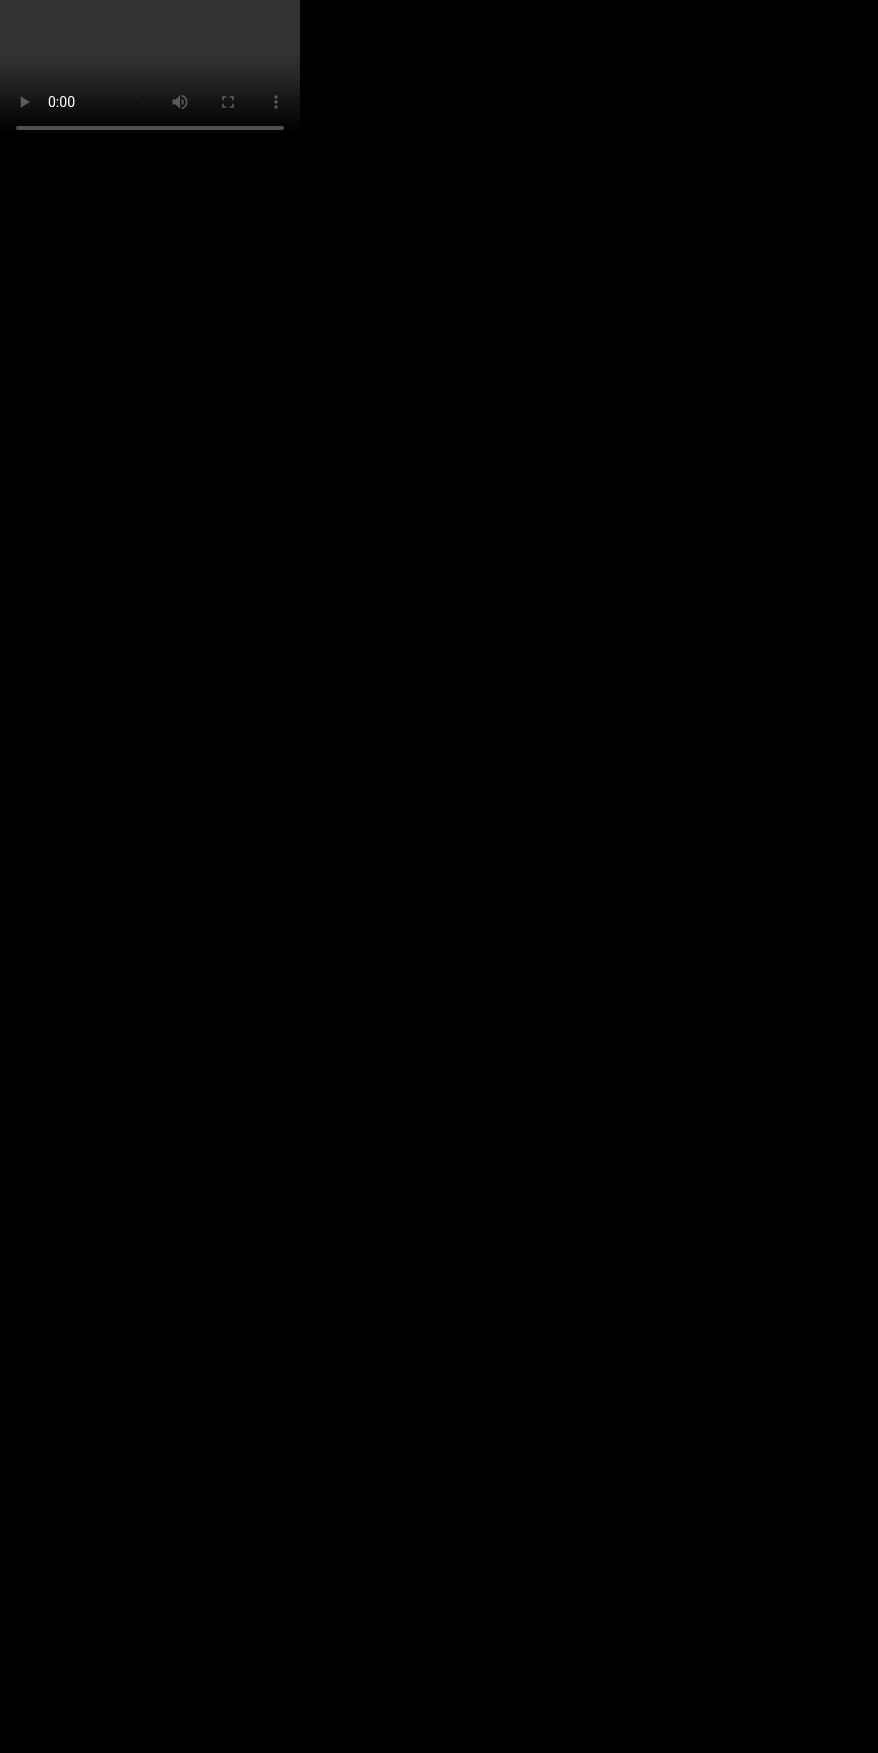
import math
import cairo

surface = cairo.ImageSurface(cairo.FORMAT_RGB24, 878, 1753)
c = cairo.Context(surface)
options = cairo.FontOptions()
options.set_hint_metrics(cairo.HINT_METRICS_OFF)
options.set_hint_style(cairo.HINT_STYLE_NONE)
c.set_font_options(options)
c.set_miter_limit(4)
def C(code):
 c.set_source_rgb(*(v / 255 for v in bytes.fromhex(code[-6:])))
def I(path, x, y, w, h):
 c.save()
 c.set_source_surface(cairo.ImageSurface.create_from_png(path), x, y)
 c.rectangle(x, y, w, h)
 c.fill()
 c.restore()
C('000000')
c.paint()
I('1.png',0,0,300,130)
surface.write_to_png('o.png')
